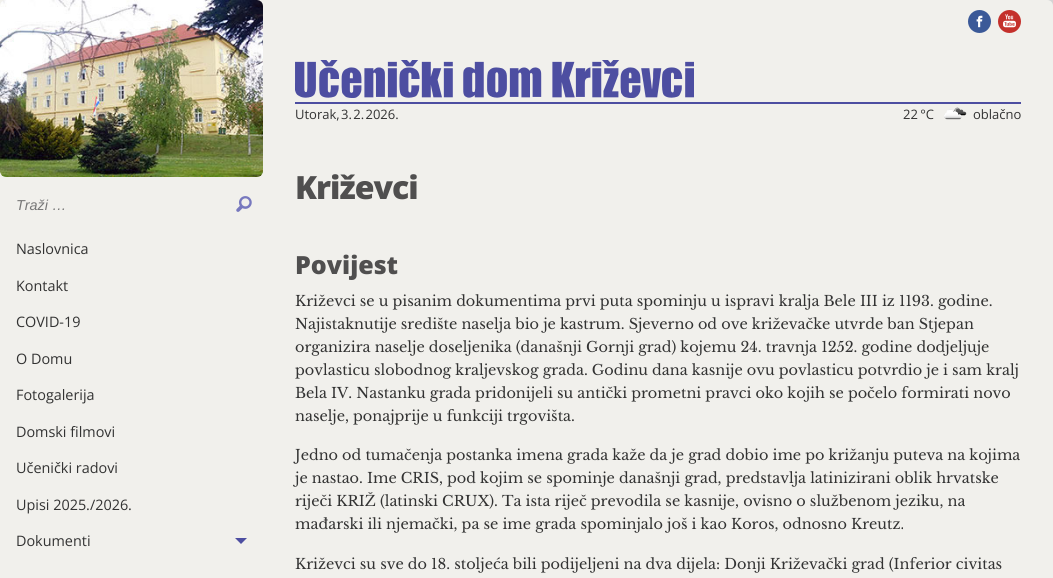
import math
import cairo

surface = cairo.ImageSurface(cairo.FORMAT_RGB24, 1053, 578)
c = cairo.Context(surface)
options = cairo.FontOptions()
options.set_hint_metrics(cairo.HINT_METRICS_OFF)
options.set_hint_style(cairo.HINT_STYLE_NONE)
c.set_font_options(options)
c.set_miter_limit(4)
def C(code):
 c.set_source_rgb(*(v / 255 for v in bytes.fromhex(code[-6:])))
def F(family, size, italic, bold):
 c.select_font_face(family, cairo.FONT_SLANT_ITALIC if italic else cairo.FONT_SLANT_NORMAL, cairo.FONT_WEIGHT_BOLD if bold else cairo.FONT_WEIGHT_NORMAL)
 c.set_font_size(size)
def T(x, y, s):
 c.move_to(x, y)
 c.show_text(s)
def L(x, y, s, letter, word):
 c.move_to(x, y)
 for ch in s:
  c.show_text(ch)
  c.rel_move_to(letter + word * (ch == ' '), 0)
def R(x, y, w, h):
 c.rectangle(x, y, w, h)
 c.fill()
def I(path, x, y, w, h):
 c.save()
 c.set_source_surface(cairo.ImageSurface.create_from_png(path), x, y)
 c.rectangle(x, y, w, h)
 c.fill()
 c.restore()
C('ffffff')
c.paint()
gradient = cairo.LinearGradient(526,0,527,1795)
gradient.add_color_stop_rgba(0,0.831,0.831,0.831,1)
gradient.add_color_stop_rgba(.57,0.945,0.941,0.925,1)
c.set_source(gradient)
R(1047,0,6,6)
C('f1f0ec')
R(0,0,263,578)
I('1.png',0,0,263,177)
F('Liberation Sans',14.4,1,0)
C('777777')
T(16,210,'Traži …')
I('2.png',236,196,16,16)
F('Open Sans',14.4,0,0)
C('333333')
T(16,254,'Naslovnica')
T(16,291,'Kontakt')
T(16,327,'COVID-19')
T(16,364,'O Domu')
T(16,400,'Fotogalerija')
T(16,437,'Domski filmovi')
T(16,473,'Učenički radovi')
T(16,510,'Upisi 2025./2026.')
T(16,546,'Dokumenti')
C('4d4ea1')
c.new_path()
c.move_to(235,538)
c.line_to(247,538)
c.line_to(241,544)
c.close_path()
c.fill()
C('f1f0ec')
c.new_path()
c.move_to(263,0)
c.line_to(1047,0)
c.curve_to(1050.5,0,1053,2.5,1053,6)
c.line_to(1053,578)
c.curve_to(1053,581.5,1050.5,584,1047,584)
c.line_to(263,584)
c.close_path()
c.fill()
I('3.png',968,10,23,23)
I('4.png',998,10,23,23)
I('5.png',295,60,399,38)
C('4d4ea1')
R(295,102,726,2)
F('Open Sans',13,0,0)
C('333333')
L(295,119,'Utorak, 3. 2. 2026.',0,-2)
L(903,119,'22 °C',0,-1)
I('6.png',944,107,23,13)
T(973,119,'oblačno')
F('Open Sans ExtraBold',32,0,0)
C('504f4f')
L(295,199,'Križevci',-1,0)
F('Open Sans ExtraBold',25,0,0)
T(295,274,'Povijest')
F('Libre Baskerville',14.4,0,0)
C('333333')
T(295,306,'Križevci se u pisanim dokumentima prvi puta spominju u ispravi kralja Bele III iz 1193. godine.')
T(295,329,'Najistaknutije središte naselja bio je kastrum. Sjeverno od ove križevačke utvrde ban Stjepan')
T(295,352,'organizira naselje doseljenika (današnji Gornji grad) kojemu 24. travnja 1252. godine dodjeljuje')
T(295,375,'povlasticu slobodnog kraljevskog grada. Godinu dana kasnije ovu povlasticu potvrdio je i sam kralj')
T(295,398,'Bela IV. Nastanku grada pridonijeli su antički prometni pravci oko kojih se počelo formirati novo')
T(295,421,'naselje, ponajprije u funkciji trgovišta.')
T(295,460,'Jedno od tumačenja postanka imena grada kaže da je grad dobio ime po križanju puteva na kojima')
T(295,483,'je nastao. Ime CRIS, pod kojim se spominje današnji grad, predstavlja latinizirani oblik hrvatske')
T(295,506,'riječi KRIŽ (latinski CRUX). Ta ista riječ prevodila se kasnije, ovisno o službenom jeziku, na')
T(295,529,'mađarski ili njemački, pa se ime grada spominjalo još i kao Koros, odnosno Kreutz.')
T(295,569,'Križevci su sve do 18. stoljeća bili podijeljeni na dva dijela: Donji Križevački grad (Inferior civitas')
surface.write_to_png('o.png')
